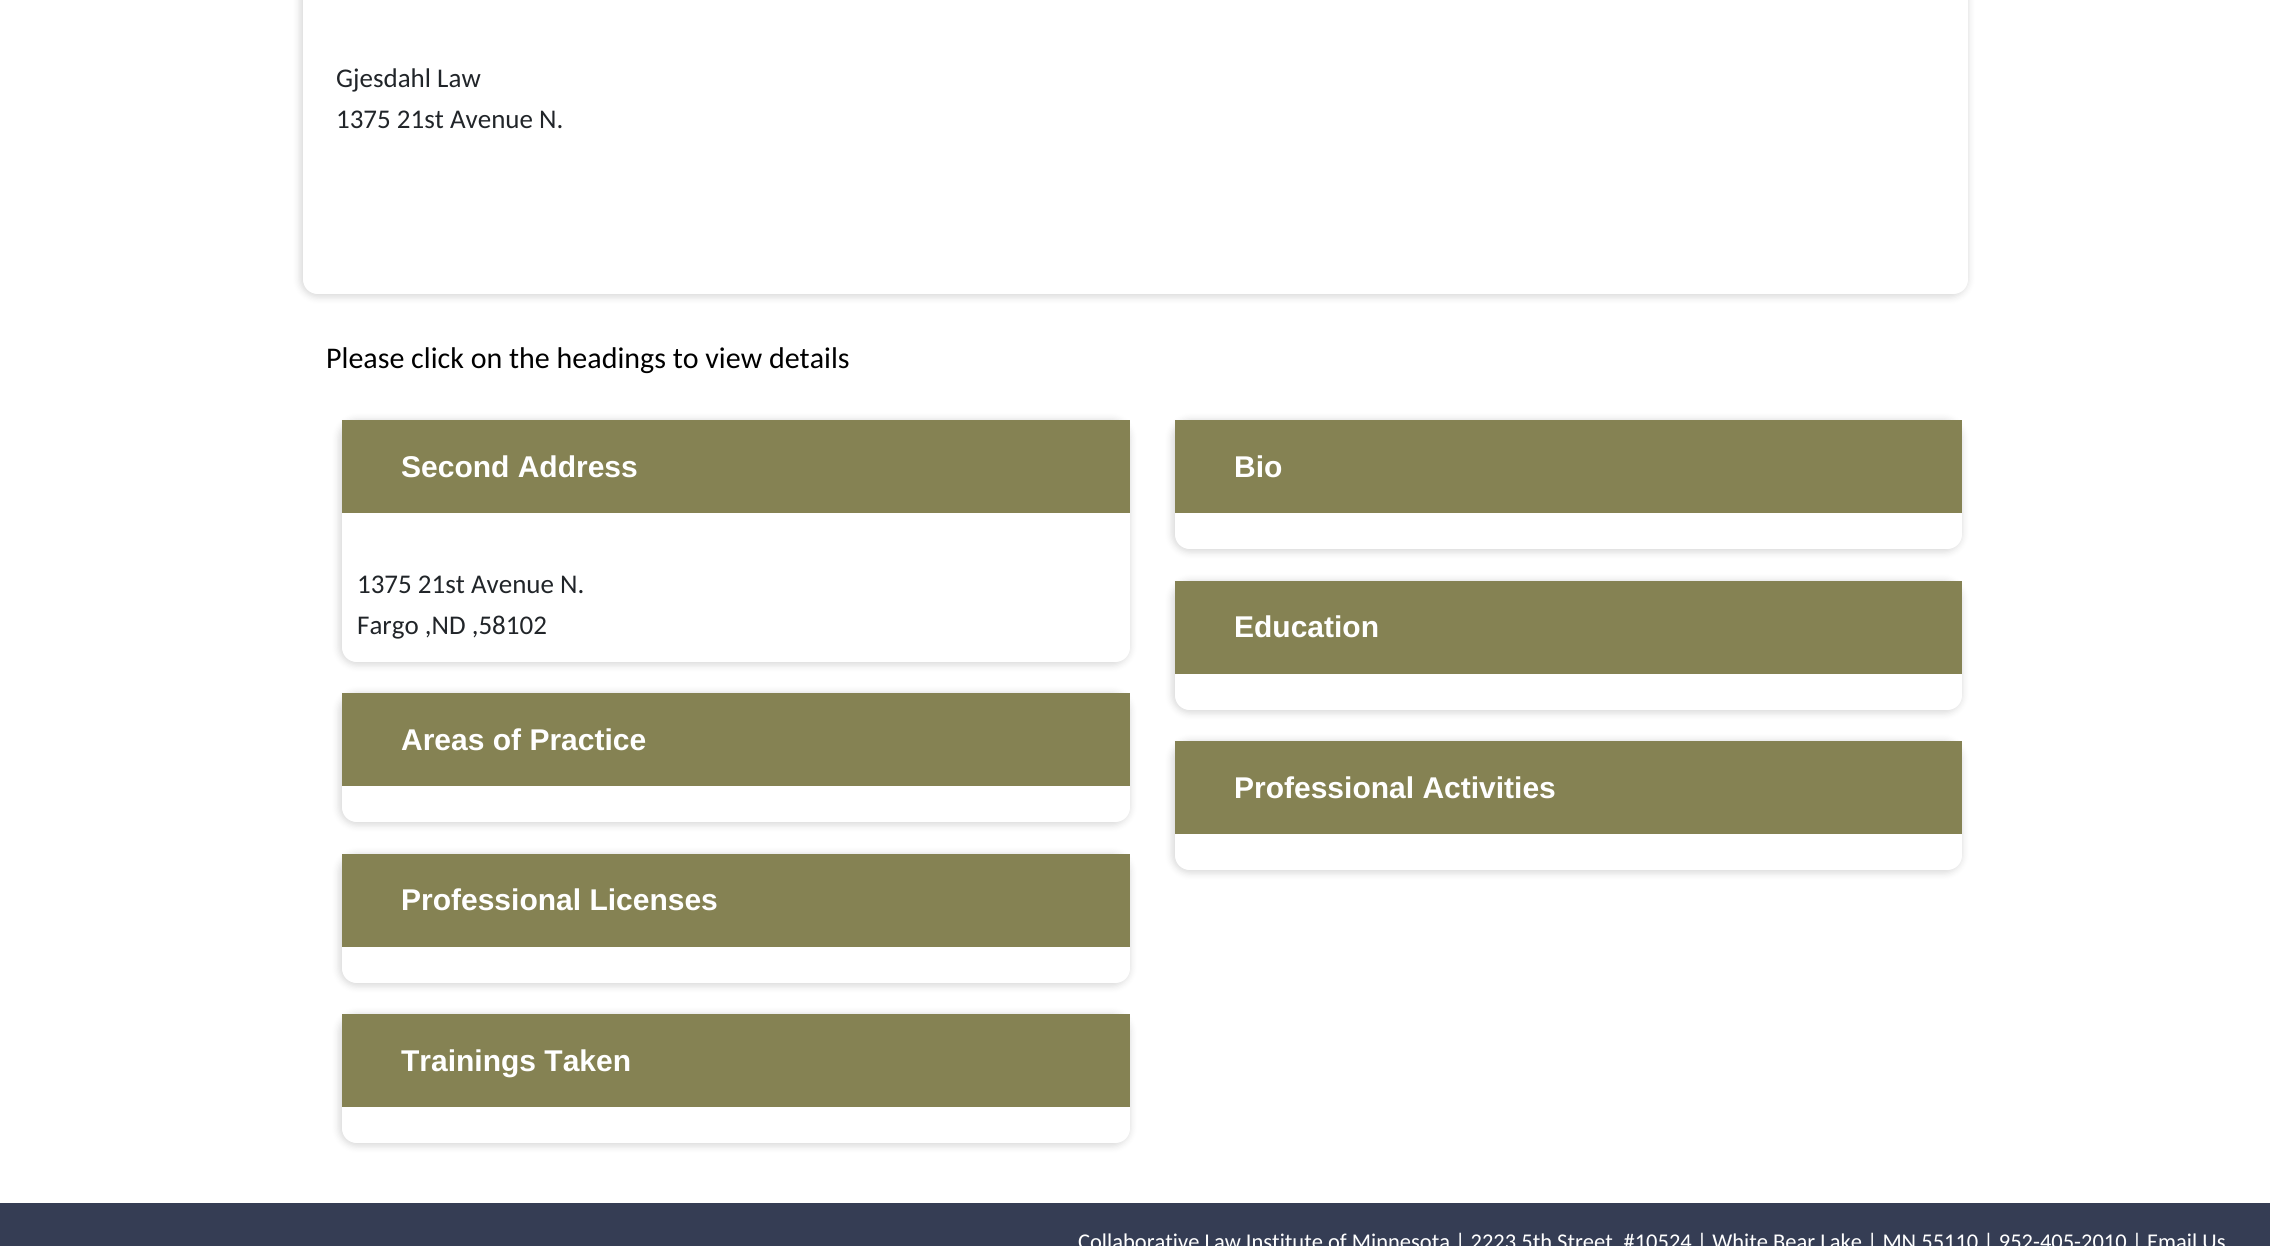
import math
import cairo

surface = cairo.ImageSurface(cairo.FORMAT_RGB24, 2270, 1246)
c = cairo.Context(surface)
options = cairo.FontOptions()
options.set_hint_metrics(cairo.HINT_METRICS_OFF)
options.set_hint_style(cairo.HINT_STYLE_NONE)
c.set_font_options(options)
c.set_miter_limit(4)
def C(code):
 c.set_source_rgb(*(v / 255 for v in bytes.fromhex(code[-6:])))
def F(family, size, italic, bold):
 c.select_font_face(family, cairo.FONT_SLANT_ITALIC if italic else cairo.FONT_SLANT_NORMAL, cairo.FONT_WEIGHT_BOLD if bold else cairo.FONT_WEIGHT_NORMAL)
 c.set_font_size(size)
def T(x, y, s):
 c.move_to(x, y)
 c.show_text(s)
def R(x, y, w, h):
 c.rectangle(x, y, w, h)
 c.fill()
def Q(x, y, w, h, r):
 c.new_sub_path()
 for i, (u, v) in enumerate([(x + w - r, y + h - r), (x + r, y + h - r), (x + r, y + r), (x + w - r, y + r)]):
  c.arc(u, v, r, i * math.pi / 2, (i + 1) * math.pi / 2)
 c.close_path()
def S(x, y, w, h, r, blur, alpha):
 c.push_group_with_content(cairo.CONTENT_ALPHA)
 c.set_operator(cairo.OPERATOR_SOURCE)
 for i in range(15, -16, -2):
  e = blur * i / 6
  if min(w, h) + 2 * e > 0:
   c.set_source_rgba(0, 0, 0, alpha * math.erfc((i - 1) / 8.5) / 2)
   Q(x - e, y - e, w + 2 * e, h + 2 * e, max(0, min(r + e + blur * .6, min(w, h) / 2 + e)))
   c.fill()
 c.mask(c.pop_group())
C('ffffff')
c.paint()
c.save()
c.set_fill_rule(cairo.FILL_RULE_EVEN_ODD)
c.new_path()
c.move_to(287,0)
c.line_to(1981,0)
c.line_to(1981,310)
c.line_to(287,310)
c.close_path()
c.move_to(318,-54)
c.line_to(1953,-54)
c.curve_to(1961.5,-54,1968,-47.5,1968,-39)
c.line_to(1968,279)
c.curve_to(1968,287.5,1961.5,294,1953,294)
c.line_to(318,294)
c.curve_to(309.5,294,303,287.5,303,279)
c.line_to(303,-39)
c.curve_to(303,-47.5,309.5,-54,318,-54)
c.close_path()
c.clip()
C('000000')
S(300,-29,1668,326,17,4,.15)
c.restore()
F('Carlito',27,0,0)
C('212529')
T(336,87,'Gjesdahl Law')
T(336,128,'1375 21st Avenue N.')
F('Carlito',30,0,0)
C('000000')
T(326,368,'Please click on the headings to view details')
c.save()
c.set_fill_rule(cairo.FILL_RULE_EVEN_ODD)
c.new_path()
c.move_to(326,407)
c.line_to(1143,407)
c.line_to(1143,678)
c.line_to(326,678)
c.close_path()
c.move_to(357,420)
c.line_to(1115,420)
c.curve_to(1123.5,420,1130,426.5,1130,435)
c.line_to(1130,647)
c.curve_to(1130,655.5,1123.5,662,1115,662)
c.line_to(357,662)
c.curve_to(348.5,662,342,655.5,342,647)
c.line_to(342,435)
c.curve_to(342,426.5,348.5,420,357,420)
c.close_path()
c.clip()
C('000000')
S(339,420,791,245,17,4,.15)
c.restore()
C('858253')
R(342,420,788,93)
F('Liberation Sans',30,0,1)
C('ffffff')
T(401,477,'Second Address')
F('Carlito',27,0,0)
C('212529')
T(357,593,'1375 21st Avenue N.')
T(357,634,'Fargo ,ND ,58102')
c.save()
c.set_fill_rule(cairo.FILL_RULE_EVEN_ODD)
c.new_path()
c.move_to(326,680)
c.line_to(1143,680)
c.line_to(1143,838)
c.line_to(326,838)
c.close_path()
c.move_to(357,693)
c.line_to(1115,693)
c.curve_to(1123.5,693,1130,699.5,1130,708)
c.line_to(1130,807)
c.curve_to(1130,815.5,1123.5,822,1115,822)
c.line_to(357,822)
c.curve_to(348.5,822,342,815.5,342,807)
c.line_to(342,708)
c.curve_to(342,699.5,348.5,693,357,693)
c.close_path()
c.clip()
C('000000')
S(339,693,791,132,17,4,.15)
c.restore()
C('858253')
R(342,693,788,93)
F('Liberation Sans',30,0,1)
C('ffffff')
T(401,750,'Areas of Practice')
c.save()
c.set_fill_rule(cairo.FILL_RULE_EVEN_ODD)
c.new_path()
c.move_to(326,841)
c.line_to(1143,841)
c.line_to(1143,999)
c.line_to(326,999)
c.close_path()
c.move_to(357,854)
c.line_to(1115,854)
c.curve_to(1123.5,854,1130,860.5,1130,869)
c.line_to(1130,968)
c.curve_to(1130,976.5,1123.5,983,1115,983)
c.line_to(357,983)
c.curve_to(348.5,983,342,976.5,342,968)
c.line_to(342,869)
c.curve_to(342,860.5,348.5,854,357,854)
c.close_path()
c.clip()
C('000000')
S(339,854,791,132,17,4,.15)
c.restore()
C('858253')
R(342,854,788,93)
C('ffffff')
T(401,910,'Professional Licenses')
c.save()
c.set_fill_rule(cairo.FILL_RULE_EVEN_ODD)
c.new_path()
c.move_to(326,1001)
c.line_to(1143,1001)
c.line_to(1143,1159)
c.line_to(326,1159)
c.close_path()
c.move_to(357,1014)
c.line_to(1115,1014)
c.curve_to(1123.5,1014,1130,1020.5,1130,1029)
c.line_to(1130,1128)
c.curve_to(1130,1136.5,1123.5,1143,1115,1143)
c.line_to(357,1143)
c.curve_to(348.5,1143,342,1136.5,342,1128)
c.line_to(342,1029)
c.curve_to(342,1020.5,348.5,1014,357,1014)
c.close_path()
c.clip()
C('000000')
S(339,1014,791,132,17,4,.15)
c.restore()
C('858253')
R(342,1014,788,93)
C('ffffff')
T(401,1071,'Trainings Taken')
c.save()
c.set_fill_rule(cairo.FILL_RULE_EVEN_ODD)
c.new_path()
c.move_to(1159,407)
c.line_to(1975,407)
c.line_to(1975,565)
c.line_to(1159,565)
c.close_path()
c.move_to(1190,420)
c.line_to(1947,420)
c.curve_to(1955.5,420,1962,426.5,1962,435)
c.line_to(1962,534)
c.curve_to(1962,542.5,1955.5,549,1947,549)
c.line_to(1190,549)
c.curve_to(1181.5,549,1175,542.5,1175,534)
c.line_to(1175,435)
c.curve_to(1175,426.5,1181.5,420,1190,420)
c.close_path()
c.clip()
C('000000')
S(1172,420,790,132,17,4,.15)
c.restore()
C('858253')
R(1175,420,787,93)
C('ffffff')
T(1234,477,'Bio')
c.save()
c.set_fill_rule(cairo.FILL_RULE_EVEN_ODD)
c.new_path()
c.move_to(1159,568)
c.line_to(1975,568)
c.line_to(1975,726)
c.line_to(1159,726)
c.close_path()
c.move_to(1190,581)
c.line_to(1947,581)
c.curve_to(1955.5,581,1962,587.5,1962,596)
c.line_to(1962,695)
c.curve_to(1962,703.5,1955.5,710,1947,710)
c.line_to(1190,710)
c.curve_to(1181.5,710,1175,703.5,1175,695)
c.line_to(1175,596)
c.curve_to(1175,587.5,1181.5,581,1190,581)
c.close_path()
c.clip()
C('000000')
S(1172,581,790,132,17,4,.15)
c.restore()
C('858253')
R(1175,581,787,93)
C('ffffff')
T(1234,637,'Education')
c.save()
c.set_fill_rule(cairo.FILL_RULE_EVEN_ODD)
c.new_path()
c.move_to(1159,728)
c.line_to(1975,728)
c.line_to(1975,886)
c.line_to(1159,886)
c.close_path()
c.move_to(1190,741)
c.line_to(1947,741)
c.curve_to(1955.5,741,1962,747.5,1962,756)
c.line_to(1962,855)
c.curve_to(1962,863.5,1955.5,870,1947,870)
c.line_to(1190,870)
c.curve_to(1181.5,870,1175,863.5,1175,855)
c.line_to(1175,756)
c.curve_to(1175,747.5,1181.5,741,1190,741)
c.close_path()
c.clip()
C('000000')
S(1172,741,790,132,17,4,.15)
c.restore()
C('858253')
R(1175,741,787,93)
C('ffffff')
T(1234,798,'Professional Activities')
C('353d54')
R(0,1203,2270,43)
F('Carlito',22.5,0,0)
C('ffffff')
T(1078,1249,'Collaborative Law Institute of Minnesota | 2223 5th Street, #10524 | White Bear Lake | MN 55110 | 952-405-2010 | Email Us')
surface.write_to_png('o.png')
